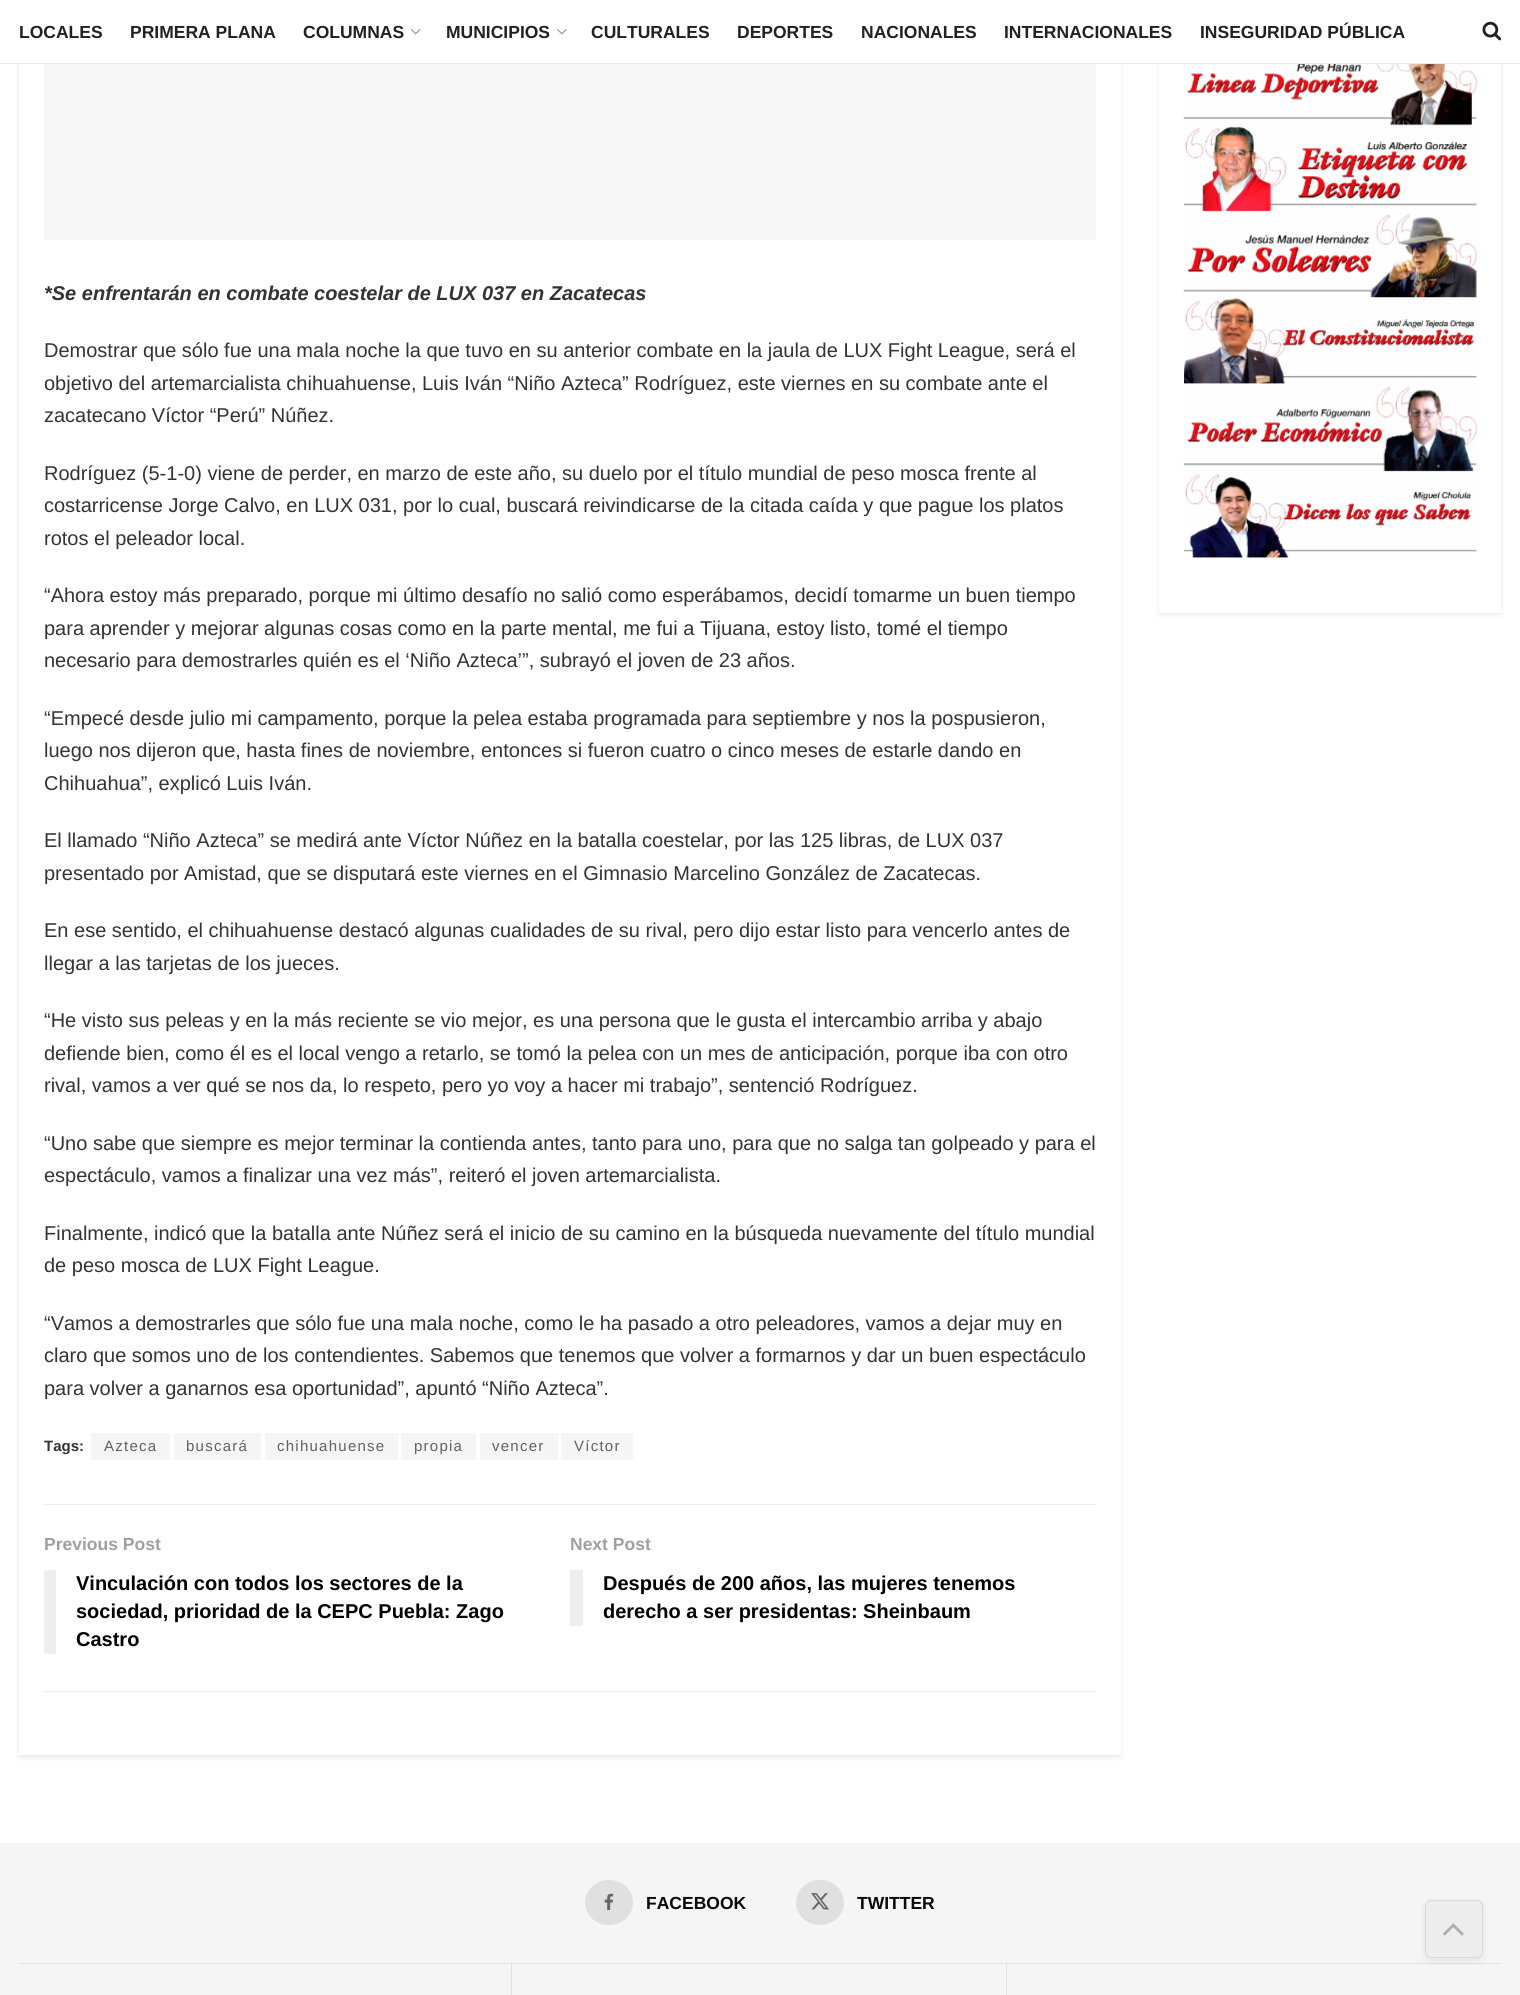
import math
import cairo

surface = cairo.ImageSurface(cairo.FORMAT_RGB24, 1520, 1995)
c = cairo.Context(surface)
options = cairo.FontOptions()
options.set_hint_metrics(cairo.HINT_METRICS_OFF)
options.set_hint_style(cairo.HINT_STYLE_NONE)
c.set_font_options(options)
c.set_miter_limit(4)
def C(code):
 c.set_source_rgb(*(v / 255 for v in bytes.fromhex(code[-6:])))
def F(family, size, italic, bold):
 c.select_font_face(family, cairo.FONT_SLANT_ITALIC if italic else cairo.FONT_SLANT_NORMAL, cairo.FONT_WEIGHT_BOLD if bold else cairo.FONT_WEIGHT_NORMAL)
 c.set_font_size(size)
def T(x, y, s):
 c.move_to(x, y)
 c.show_text(s)
def L(x, y, s, letter, word):
 c.move_to(x, y)
 for ch in s:
  c.show_text(ch)
  c.rel_move_to(letter + word * (ch == ' '), 0)
def R(x, y, w, h):
 c.rectangle(x, y, w, h)
 c.fill()
def Q(x, y, w, h, r):
 c.new_sub_path()
 for i, (u, v) in enumerate([(x + w - r, y + h - r), (x + r, y + h - r), (x + r, y + r), (x + w - r, y + r)]):
  c.arc(u, v, r, i * math.pi / 2, (i + 1) * math.pi / 2)
 c.close_path()
def S(x, y, w, h, r, blur, alpha):
 c.push_group_with_content(cairo.CONTENT_ALPHA)
 c.set_operator(cairo.OPERATOR_SOURCE)
 for i in range(15, -16, -2):
  e = blur * i / 6
  if min(w, h) + 2 * e > 0:
   c.set_source_rgba(0, 0, 0, alpha * math.erfc((i - 1) / 8.5) / 2)
   Q(x - e, y - e, w + 2 * e, h + 2 * e, max(0, min(r + e + blur * .6, min(w, h) / 2 + e)))
   c.fill()
 c.mask(c.pop_group())
def I(path, x, y, w, h):
 c.save()
 c.set_source_surface(cairo.ImageSurface.create_from_png(path), x, y)
 c.rectangle(x, y, w, h)
 c.fill()
 c.restore()
C('ffffff')
c.paint()
c.save()
c.set_fill_rule(cairo.FILL_RULE_EVEN_ODD)
c.new_path()
c.move_to(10,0)
c.line_to(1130,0)
c.line_to(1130,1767)
c.line_to(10,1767)
c.close_path()
c.move_to(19,-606)
c.line_to(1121,-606)
c.line_to(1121,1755)
c.line_to(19,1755)
c.close_path()
c.clip()
C('000000')
S(19,-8,1102,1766,0,2.5,.08)
c.restore()
C('000000')
S(1159,-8,342,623,0,2.5,.08)
C('ffffff')
R(16,0,1488,63)
C('e8e8e8')
R(0,63,1520,1)
F('Liberation Sans',17.5,0,1)
C('212121')
T(19,38,'LOCALES')
T(130,38,'PRIMERA PLANA')
T(303,38,'COLUMNAS')
I('1.png',410,29,11,6)
T(446,38,'MUNICIPIOS')
I('2.png',557,29,10,6)
T(591,38,'CULTURALES')
T(737,38,'DEPORTES')
T(861,38,'NACIONALES')
T(1004,38,'INTERNACIONALES')
T(1200,38,'INSEGURIDAD PÚBLICA')
I('3.png',1482,21,19,20)
C('f7f7f7')
R(44,64,1052,176)
F('Liberation Sans',20,1,1)
C('333333')
T(44,300,'*Se enfrentarán en combate coestelar de LUX 037 en Zacatecas')
F('Liberation Sans',20,0,0)
T(44,357,'Demostrar que sólo fue una mala noche la que tuvo en su anterior combate en la jaula de LUX Fight League, será el')
T(44,390,'objetivo del artemarcialista chihuahuense, Luis Iván “Niño Azteca” Rodríguez, este viernes en su combate ante el')
T(44,422,'zacatecano Víctor “Perú” Núñez.')
T(44,480,'Rodríguez (5-1-0) viene de perder, en marzo de este año, su duelo por el título mundial de peso mosca frente al')
T(44,512,'costarricense Jorge Calvo, en LUX 031, por lo cual, buscará reivindicarse de la citada caída y que pague los platos')
T(44,545,'rotos el peleador local.')
T(44,602,'“Ahora estoy más preparado, porque mi último desafío no salió como esperábamos, decidí tomarme un buen tiempo')
T(44,635,'para aprender y mejorar algunas cosas como en la parte mental, me fui a Tijuana, estoy listo, tomé el tiempo')
T(44,667,'necesario para demostrarles quién es el ‘Niño Azteca’”, subrayó el joven de 23 años.')
T(44,725,'“Empecé desde julio mi campamento, porque la pelea estaba programada para septiembre y nos la pospusieron,')
T(44,757,'luego nos dijeron que, hasta fines de noviembre, entonces si fueron cuatro o cinco meses de estarle dando en')
T(44,790,'Chihuahua”, explicó Luis Iván.')
T(44,847,'El llamado “Niño Azteca” se medirá ante Víctor Núñez en la batalla coestelar, por las 125 libras, de LUX 037')
T(44,880,'presentado por Amistad, que se disputará este viernes en el Gimnasio Marcelino González de Zacatecas.')
T(44,937,'En ese sentido, el chihuahuense destacó algunas cualidades de su rival, pero dijo estar listo para vencerlo antes de')
T(44,970,'llegar a las tarjetas de los jueces.')
T(44,1027,'“He visto sus peleas y en la más reciente se vio mejor, es una persona que le gusta el intercambio arriba y abajo')
T(44,1060,'defiende bien, como él es el local vengo a retarlo, se tomó la pelea con un mes de anticipación, porque iba con otro')
T(44,1092,'rival, vamos a ver qué se nos da, lo respeto, pero yo voy a hacer mi trabajo”, sentenció Rodríguez.')
T(44,1150,'“Uno sabe que siempre es mejor terminar la contienda antes, tanto para uno, para que no salga tan golpeado y para el')
T(44,1182,'espectáculo, vamos a finalizar una vez más”, reiteró el joven artemarcialista.')
T(44,1240,'Finalmente, indicó que la batalla ante Núñez será el inicio de su camino en la búsqueda nuevamente del título mundial')
T(44,1272,'de peso mosca de LUX Fight League.')
T(44,1330,'“Vamos a demostrarles que sólo fue una mala noche, como le ha pasado a otro peleadores, vamos a dejar muy en')
T(44,1362,'claro que somos uno de los contendientes. Sabemos que tenemos que volver a formarnos y dar un buen espectáculo')
T(44,1395,'para volver a ganarnos esa oportunidad”, apuntó “Niño Azteca”.')
F('Liberation Sans',15,0,1)
T(44,1451,'Tags:')
C('f5f5f5')
R(91,1433,79,27)
F('Liberation Sans',15,0,0)
C('616161')
L(104,1451,'Azteca',1.25,0)
C('f5f5f5')
R(174,1433,87,27)
C('616161')
L(186,1451,'buscará',1.25,0)
C('f5f5f5')
R(265,1433,133,27)
C('616161')
L(277,1451,'chihuahuense',1.25,0)
C('f5f5f5')
R(401,1433,75,27)
C('616161')
L(414,1451,'propia',1.25,0)
C('f5f5f5')
R(480,1433,78,27)
C('616161')
L(492,1451,'vencer',1.25,0)
C('f5f5f5')
R(561,1433,72,27)
C('616161')
L(574,1451,'Víctor',1.25,0)
C('eeeeee')
R(44,1504,1052,1)
R(44,1691,1052,1)
F('Liberation Sans',17.5,0,1)
C('a0a0a0')
T(44,1550,'Previous Post')
C('eeeeee')
R(44,1570,12,84)
F('Liberation Sans',20,0,1)
C('000000')
T(76,1590,'Vinculación con todos los sectores de la')
T(76,1618,'sociedad, prioridad de la CEPC Puebla: Zago')
T(76,1646,'Castro')
F('Liberation Sans',17.5,0,1)
C('a0a0a0')
T(570,1550,'Next Post')
C('eeeeee')
R(570,1570,13,56)
F('Liberation Sans',20,0,1)
C('000000')
T(603,1590,'Después de 200 años, las mujeres tenemos')
T(603,1618,'derecho a ser presidentas: Sheinbaum')
C('ffffff')
R(1159,64,342,549)
I('4.png',1183,64,294,62)
I('5.png',1184,124,293,88)
I('6.png',1183,210,294,88)
I('7.png',1184,297,293,88)
I('8.png',1183,383,294,89)
I('9.png',1184,471,293,87)
C('f5f5f5')
R(0,1843,1520,152)
C('e0e0e0')
R(19,1963,1482,1)
c.new_path()
c.move_to(609,1880)
c.curve_to(622.5,1880,633,1890,633,1902.5)
c.curve_to(633,1915,622.5,1925,609,1925)
c.curve_to(595.5,1925,585,1915,585,1902.5)
c.curve_to(585,1890,595.5,1880,609,1880)
c.close_path()
c.fill()
I('10.png',604,1893,10,17)
F('Liberation Sans',17.5,0,1)
C('0a0808')
T(646,1909,'FACEBOOK')
C('e0e0e0')
c.new_path()
c.move_to(820,1880)
c.curve_to(833.5,1880,844,1890,844,1902.5)
c.curve_to(844,1915,833.5,1925,820,1925)
c.curve_to(806.5,1925,796,1915,796,1902.5)
c.curve_to(796,1890,806.5,1880,820,1880)
c.close_path()
c.fill()
I('11.png',811,1893,18,17)
C('0a0808')
T(857,1909,'TWITTER')
C('e0e0e0')
R(511,1964,1,31)
R(1006,1964,1,31)
c.save()
c.set_fill_rule(cairo.FILL_RULE_EVEN_ODD)
c.new_path()
c.move_to(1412,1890)
c.line_to(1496,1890)
c.line_to(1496,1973)
c.line_to(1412,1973)
c.close_path()
c.move_to(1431,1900)
c.line_to(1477,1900)
c.curve_to(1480.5,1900,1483,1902.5,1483,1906)
c.line_to(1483,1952)
c.curve_to(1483,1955.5,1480.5,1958,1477,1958)
c.line_to(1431,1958)
c.curve_to(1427.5,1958,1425,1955.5,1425,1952)
c.line_to(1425,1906)
c.curve_to(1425,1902.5,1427.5,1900,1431,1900)
c.close_path()
c.clip()
C('000000')
S(1425,1903,58,57,6,4,.08)
c.restore()
c.set_source_rgba(0.761,0.761,0.761,0.15)
Q(1425,1900,58,58,6)
c.fill()
Q(1425.5,1900.5,57,57,5.5)
c.set_source_rgba(0.192,0.192,0.192,0.11)
c.set_line_width(1)
c.stroke()
I('12.png',1443,1923,21,13)
surface.write_to_png('o.png')
